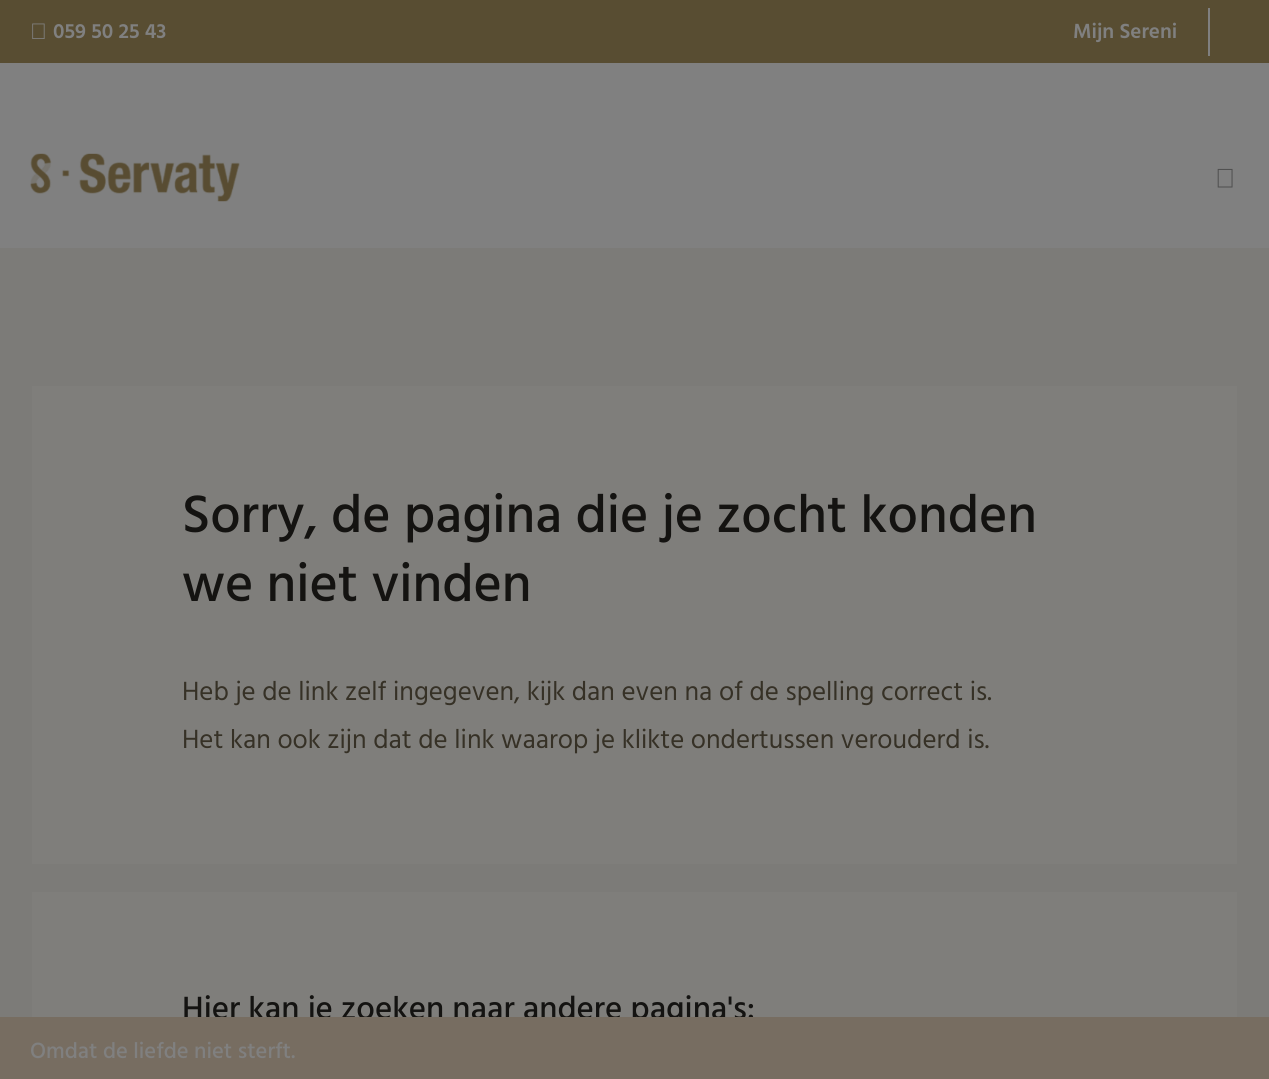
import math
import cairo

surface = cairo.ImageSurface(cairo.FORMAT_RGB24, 1269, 1079)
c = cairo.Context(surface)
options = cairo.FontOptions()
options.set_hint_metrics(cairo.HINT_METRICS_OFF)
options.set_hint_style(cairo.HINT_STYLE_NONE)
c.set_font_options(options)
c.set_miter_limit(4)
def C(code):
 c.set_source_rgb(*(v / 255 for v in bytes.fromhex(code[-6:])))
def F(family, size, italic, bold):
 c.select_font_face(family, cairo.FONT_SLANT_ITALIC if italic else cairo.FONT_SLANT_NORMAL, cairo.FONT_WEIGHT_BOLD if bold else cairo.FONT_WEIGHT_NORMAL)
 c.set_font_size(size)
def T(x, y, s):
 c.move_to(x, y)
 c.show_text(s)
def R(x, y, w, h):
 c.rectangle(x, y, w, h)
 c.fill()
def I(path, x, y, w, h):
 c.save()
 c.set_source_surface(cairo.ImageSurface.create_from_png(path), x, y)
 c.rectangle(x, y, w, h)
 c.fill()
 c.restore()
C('7c7b78')
c.paint()
C('808080')
R(0,63,1269,185)
C('584d32')
R(0,0,1269,63)
I('1.png',32,23,13,16)
F('Hind SemiBold',21,0,0)
C('808080')
T(53,38,'059 50 25 43')
R(1208,8,2,48)
T(1073,38,'Mijn Sereni')
I('2.png',30,153,210,49)
I('3.png',1217,168,16,20)
C('7f7e7b')
R(32,386,1205,478)
F('Hind Medium',54,0,0)
C('141311')
T(182,532,'Sorry, de pagina die je zocht konden')
T(182,601,'we niet vinden')
F('Hind',27,0,0)
C('363126')
T(182,700,'Heb je de link zelf ingegeven, kijk dan even na of de spelling correct is.')
T(182,748,'Het kan ook zijn dat de link waarop je klikte ondertussen verouderd is.')
C('7f7e7b')
R(32,892,1205,125)
F('Hind Medium',33,0,0)
C('141311')
T(182,1019,'Hier kan je zoeken naar andere pagina\'s:')
C('776d61')
R(0,1017,1269,62)
F('Hind Medium',22.5,0,0)
C('808080')
T(30,1058,'Omdat de liefde niet sterft.')
surface.write_to_png('o.png')
